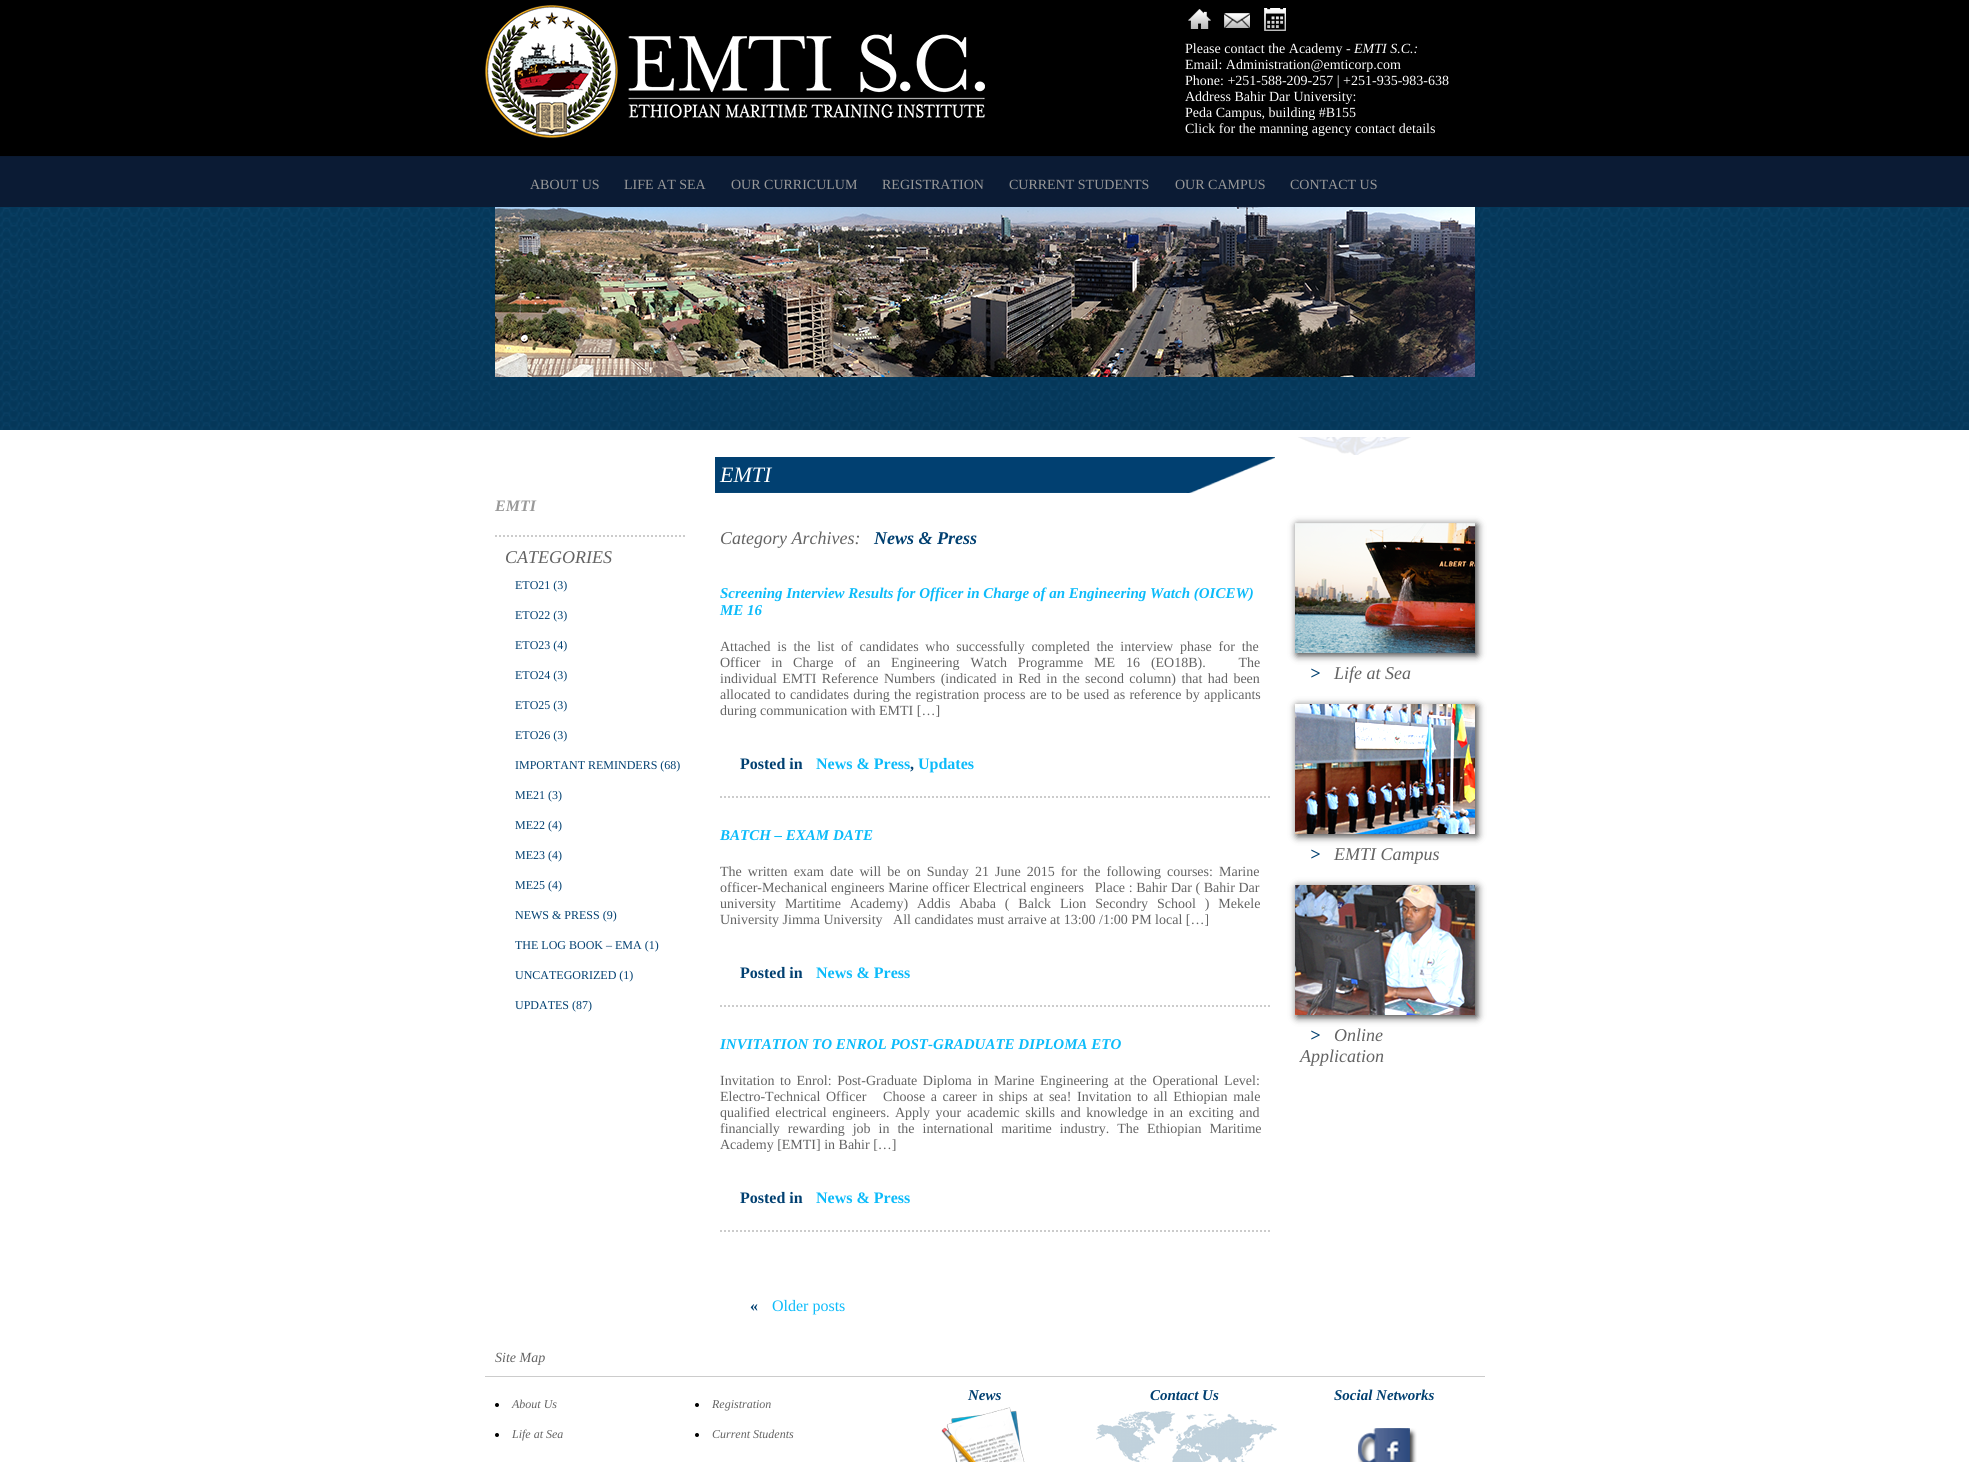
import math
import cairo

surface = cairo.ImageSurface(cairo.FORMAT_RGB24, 1969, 1462)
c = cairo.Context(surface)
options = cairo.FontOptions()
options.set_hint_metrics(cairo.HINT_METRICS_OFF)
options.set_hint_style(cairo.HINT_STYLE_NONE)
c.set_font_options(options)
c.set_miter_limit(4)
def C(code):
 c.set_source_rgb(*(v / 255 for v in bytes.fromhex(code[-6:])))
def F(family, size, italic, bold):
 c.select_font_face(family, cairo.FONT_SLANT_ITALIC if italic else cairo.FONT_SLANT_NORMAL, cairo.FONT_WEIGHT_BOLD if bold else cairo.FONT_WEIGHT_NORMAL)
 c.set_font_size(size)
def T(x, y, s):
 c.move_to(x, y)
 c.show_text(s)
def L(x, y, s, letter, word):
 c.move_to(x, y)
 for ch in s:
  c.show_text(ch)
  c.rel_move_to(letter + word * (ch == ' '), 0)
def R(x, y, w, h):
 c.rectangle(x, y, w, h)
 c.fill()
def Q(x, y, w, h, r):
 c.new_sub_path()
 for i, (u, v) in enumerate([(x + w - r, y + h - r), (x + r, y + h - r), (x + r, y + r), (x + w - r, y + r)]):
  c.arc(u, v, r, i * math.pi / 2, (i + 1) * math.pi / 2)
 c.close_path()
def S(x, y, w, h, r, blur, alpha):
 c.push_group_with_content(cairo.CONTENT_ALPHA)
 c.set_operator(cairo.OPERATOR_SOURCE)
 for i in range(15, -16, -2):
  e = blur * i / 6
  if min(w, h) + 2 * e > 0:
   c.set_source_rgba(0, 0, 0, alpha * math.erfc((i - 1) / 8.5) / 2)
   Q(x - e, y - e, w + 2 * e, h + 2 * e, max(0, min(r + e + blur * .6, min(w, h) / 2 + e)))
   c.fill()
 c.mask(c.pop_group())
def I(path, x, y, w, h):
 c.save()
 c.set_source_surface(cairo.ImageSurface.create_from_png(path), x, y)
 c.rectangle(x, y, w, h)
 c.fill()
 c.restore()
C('ffffff')
c.paint()
I('1.png',0,0,1969,430)
I('2.png',485,5,500,133)
I('3.png',1188,9,23,20)
I('4.png',1224,13,26,15)
I('5.png',1264,8,22,23)
F('Liberation Serif',14,0,0)
C('ffffff')
T(1185,53,'Please contact the Academy -')
F('Liberation Serif',14,1,0)
T(1354,53,'EMTI S.C.:')
F('Liberation Serif',14,0,0)
T(1185,69,'Email: Administration@emticorp.com')
T(1185,85,'Phone: +251-588-209-257 | +251-935-983-638')
T(1185,101,'Address Bahir Dar University:')
T(1185,117,'Peda Campus, building #B155')
T(1185,133,'Click for the manning agency contact details')
C('0b1b34')
R(0,197,1969,10)
C('999999')
T(530,189,'ABOUT US')
T(624,189,'LIFE AT SEA')
T(731,189,'OUR CURRICULUM')
T(882,189,'REGISTRATION')
T(1009,189,'CURRENT STUDENTS')
T(1175,189,'OUR CAMPUS')
T(1290,189,'CONTACT US')
I('6.png',495,207,980,170)
I('7.png',1298,437,113,18)
I('8.png',715,457,560,36)
F('Liberation Serif',22,1,0)
C('ffffff')
T(720,482,'EMTI')
F('Liberation Serif',16,1,1)
C('999999')
T(495,511,'EMTI')
c.new_path()
c.move_to(495,536)
c.line_to(685,536)
C('cccccc')
c.set_dash([2,2])
c.stroke()
F('Liberation Serif',18,1,0)
C('636363')
T(505,563,'CATEGORIES')
F('Liberation Serif',12,0,0)
C('014071')
T(515,589,'ETO21 (3)')
T(515,619,'ETO22 (3)')
T(515,649,'ETO23 (4)')
T(515,679,'ETO24 (3)')
T(515,709,'ETO25 (3)')
T(515,739,'ETO26 (3)')
T(515,769,'IMPORTANT REMINDERS (68)')
T(515,799,'ME21 (3)')
T(515,829,'ME22 (4)')
T(515,859,'ME23 (4)')
T(515,889,'ME25 (4)')
T(515,919,'NEWS & PRESS (9)')
T(515,949,'THE LOG BOOK – EMA (1)')
T(515,979,'UNCATEGORIZED (1)')
T(515,1009,'UPDATES (87)')
F('Liberation Serif',18,1,0)
C('636363')
T(720,544,'Category Archives:')
F('Liberation Serif',18,1,1)
C('014071')
T(874,544,'News & Press')
F('Liberation Serif',15,1,1)
C('0cbbfa')
T(720,598,'Screening Interview Results for Officer in Charge of an Engineering Watch (OICEW)')
T(720,615,'ME 16')
F('Liberation Serif',14,0,0)
C('636363')
L(720,651,'Attached is the list of candidates who successfully completed the interview phase for the',0,3.25)
L(720,667,'Officer in Charge of an Engineering Watch Programme ME 16 (EO18B).   The',0,7.4)
L(720,683,'individual EMTI Reference Numbers (indicated in Red in the second column) that had been',0,1.9)
L(720,699,'allocated to candidates during the registration process are to be used as reference by applicants',0,.75)
T(720,715,'during communication with EMTI […]')
F('Liberation Serif',16,0,1)
C('014071')
T(740,769,'Posted in')
C('0cbbfa')
T(816,769,'News & Press')
C('014071')
T(910,769,',')
C('0cbbfa')
T(918,769,'Updates')
c.new_path()
c.move_to(720,797)
c.line_to(1270,797)
C('cccccc')
c.stroke()
F('Liberation Serif',15,1,1)
C('0cbbfa')
T(720,840,'BATCH – EXAM DATE')
F('Liberation Serif',14,0,0)
C('636363')
L(720,876,'The written exam date will be on Sunday 21 June 2015 for the following courses: Marine',0,2.6)
L(720,892,'officer-Mechanical engineers Marine officer Electrical engineers   Place : Bahir Dar ( Bahir Dar',0,.1)
L(720,908,'university Martitime Academy) Addis Ababa ( Balck Lion Secondry School ) Mekele',0,5.4)
T(720,924,'University Jimma University   All candidates must arraive at 13:00 /1:00 PM local […]')
F('Liberation Serif',16,0,1)
C('014071')
T(740,978,'Posted in')
C('0cbbfa')
T(816,978,'News & Press')
c.new_path()
c.move_to(720,1006)
c.line_to(1270,1006)
C('cccccc')
c.stroke()
F('Liberation Serif',15,1,1)
C('0cbbfa')
T(720,1049,'INVITATION TO ENROL POST-GRADUATE DIPLOMA ETO')
F('Liberation Serif',14,0,0)
C('636363')
L(720,1085,'Invitation to Enrol: Post-Graduate Diploma in Marine Engineering at the Operational Level:',0,2.1)
L(720,1101,'Electro-Technical Officer   Choose a career in ships at sea! Invitation to all Ethiopian male',0,2.1)
L(720,1117,'qualified electrical engineers. Apply your academic skills and knowledge in an exciting and',0,2.1)
L(720,1133,'financially rewarding job in the international maritime industry. The Ethiopian Maritime',0,4.5)
T(720,1149,'Academy [EMTI] in Bahir […]')
F('Liberation Serif',16,0,1)
C('014071')
T(740,1203,'Posted in')
C('0cbbfa')
T(816,1203,'News & Press')
c.new_path()
c.move_to(720,1231)
c.line_to(1270,1231)
C('cccccc')
c.stroke()
C('014071')
T(750,1311,'«')
F('Liberation Serif',16,0,0)
C('0cbbfa')
T(772,1311,'Older posts')
C('333333')
S(1297,525,180,130,0,4,1)
I('9.png',1295,523,180,130)
F('Liberation Serif',18,1,1)
C('014071')
T(1310,679,'>')
F('Liberation Serif',18,1,0)
C('636363')
T(1334,679,'Life at Sea')
C('333333')
S(1297,706,180,130,0,4,1)
I('10.png',1295,704,180,130)
F('Liberation Serif',18,1,1)
C('014071')
T(1310,860,'>')
F('Liberation Serif',18,1,0)
C('636363')
T(1334,860,'EMTI Campus')
C('333333')
S(1297,887,180,130,0,4,1)
I('11.png',1295,885,180,130)
F('Liberation Serif',18,1,1)
C('014071')
T(1310,1041,'>')
F('Liberation Serif',18,1,0)
C('636363')
T(1334,1041,'Online')
T(1300,1062,'Application')
C('cccccc')
R(485,1376,1000,1)
F('Liberation Serif',14,1,0)
C('636363')
T(495,1362,'Site Map')
F('Liberation Serif',15,1,1)
C('014071')
T(968,1400,'News')
I('12.png',941,1407,84,55)
T(1150,1400,'Contact Us')
I('13.png',1096,1411,181,51)
T(1334,1400,'Social Networks')
I('14.png',1357,1428,60,34)
C('000000')
c.arc(497,1405,2,0,2 * math.pi)
c.fill()
F('Liberation Serif',12,1,0)
C('636363')
T(512,1408,'About Us')
C('000000')
c.new_path()
c.arc(497,1435,2,0,2 * math.pi)
c.fill()
C('636363')
T(512,1438,'Life at Sea')
C('000000')
c.new_path()
c.arc(697,1405,2,0,2 * math.pi)
c.fill()
C('636363')
T(712,1408,'Registration')
C('000000')
c.new_path()
c.arc(697,1435,2,0,2 * math.pi)
c.fill()
C('636363')
T(712,1438,'Current Students')
surface.write_to_png('o.png')
